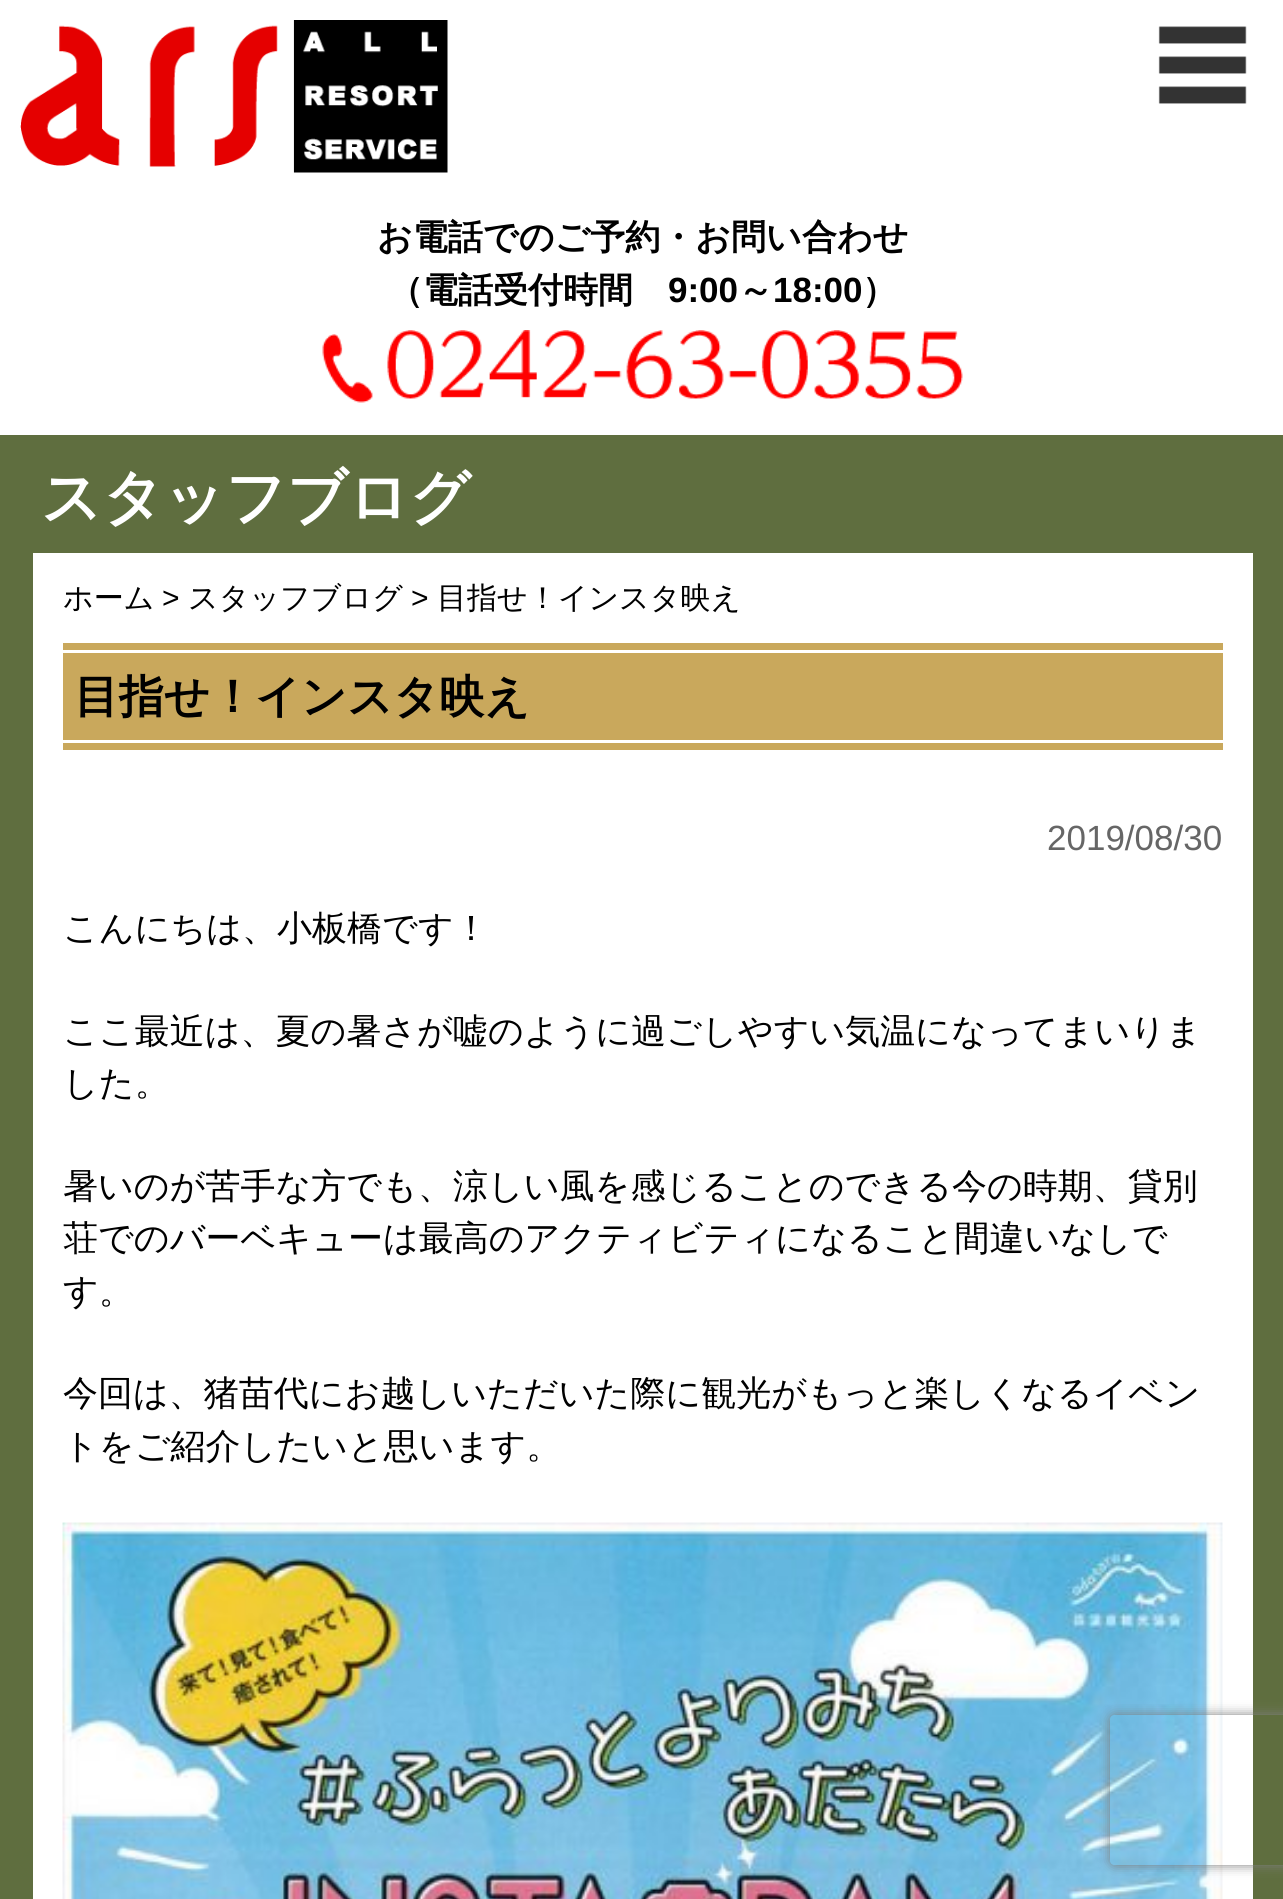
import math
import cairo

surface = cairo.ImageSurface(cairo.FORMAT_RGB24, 1283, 1899)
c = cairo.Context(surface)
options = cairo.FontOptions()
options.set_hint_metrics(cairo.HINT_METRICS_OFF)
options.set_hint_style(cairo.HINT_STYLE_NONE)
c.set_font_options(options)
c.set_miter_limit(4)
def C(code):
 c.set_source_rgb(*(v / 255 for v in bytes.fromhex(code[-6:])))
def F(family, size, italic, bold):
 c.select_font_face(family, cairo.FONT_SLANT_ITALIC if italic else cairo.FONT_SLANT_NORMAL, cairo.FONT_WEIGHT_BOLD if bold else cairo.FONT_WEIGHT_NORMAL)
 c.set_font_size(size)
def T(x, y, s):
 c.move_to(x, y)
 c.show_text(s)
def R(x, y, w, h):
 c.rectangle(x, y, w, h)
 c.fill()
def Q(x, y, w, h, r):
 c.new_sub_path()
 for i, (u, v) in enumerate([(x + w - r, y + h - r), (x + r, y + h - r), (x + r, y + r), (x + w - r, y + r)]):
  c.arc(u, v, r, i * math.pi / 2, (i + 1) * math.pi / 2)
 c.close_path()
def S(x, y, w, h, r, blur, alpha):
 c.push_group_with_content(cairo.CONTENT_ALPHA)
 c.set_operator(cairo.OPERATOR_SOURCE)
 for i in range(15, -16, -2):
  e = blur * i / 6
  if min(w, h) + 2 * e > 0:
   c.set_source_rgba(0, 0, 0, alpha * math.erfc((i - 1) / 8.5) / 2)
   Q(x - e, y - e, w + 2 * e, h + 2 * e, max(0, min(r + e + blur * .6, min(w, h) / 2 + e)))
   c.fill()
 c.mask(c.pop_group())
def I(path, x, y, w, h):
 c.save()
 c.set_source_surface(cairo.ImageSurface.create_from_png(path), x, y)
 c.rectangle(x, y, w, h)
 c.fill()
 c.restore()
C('ffffff')
c.paint()
I('1.png',20,20,428,153)
I('2.png',1158,26,89,78)
F('WenQuanYi Zen Hei',35,0,1)
C('000000')
T(377,249,'お電話でのご予約・お問い合わせ')
T(388,302,'（電話受付時間')
F('Liberation Sans',35,0,1)
T(668,302,'9:00')
F('WenQuanYi Zen Hei',35,0,1)
T(738,302,'～')
F('Liberation Sans',35,0,1)
T(773,302,'18:00')
F('WenQuanYi Zen Hei',35,0,1)
T(862,302,'）')
I('3.png',322,330,641,73)
C('5f6e3f')
R(0,435,1283,1464)
F('WenQuanYi Zen Hei',60,0,1)
C('ffffff')
T(41,518,'スタッフブログ')
R(33,553,1220,1346)
F('WenQuanYi Zen Hei Medium',30,0,0)
C('000000')
T(63,608,'ホーム')
F('Liberation Sans',30,0,0)
T(162,608,'>')
F('WenQuanYi Zen Hei Medium',30,0,0)
T(188,608,'スタッフブログ')
F('Liberation Sans',30,0,0)
T(411,608,'>')
F('WenQuanYi Zen Hei Medium',30,0,0)
T(437,608,'目指せ！インスタ映え')
C('c9a85c')
R(63,643,1160,107)
C('ffffff')
R(63,650,1160,3)
R(63,740,1160,3)
F('WenQuanYi Zen Hei',45,0,1)
C('000000')
T(74,712,'目指せ！インスタ映え')
F('Liberation Sans',35,0,0)
C('666666')
T(1047,850,'2019/08/30')
F('WenQuanYi Zen Hei Medium',35,0,0)
C('000000')
T(63,940,'こんにちは、小板橋です！')
T(63,1043,'ここ最近は、夏の暑さが嘘のように過ごしやすい気温になってまいりま')
T(63,1095,'した。')
T(63,1198,'暑いのが苦手な方でも、涼しい風を感じることのできる今の時期、貸別')
T(63,1250,'荘でのバーベキューは最高のアクティビティになること間違いなしで')
T(63,1303,'す。')
T(63,1405,'今回は、猪苗代にお越しいただいた際に観光がもっと楽しくなるイベン')
T(63,1458,'トをご紹介したいと思います。')
I('4.png',62,1522,1161,377)
c.save()
c.set_fill_rule(cairo.FILL_RULE_EVEN_ODD)
c.new_path()
c.move_to(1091,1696)
c.line_to(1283,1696)
c.line_to(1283,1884)
c.line_to(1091,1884)
c.close_path()
c.move_to(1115,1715)
c.line_to(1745,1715)
c.curve_to(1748,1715,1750,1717,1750,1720)
c.line_to(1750,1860)
c.curve_to(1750,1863,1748,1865,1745,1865)
c.line_to(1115,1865)
c.curve_to(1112,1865,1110,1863,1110,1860)
c.line_to(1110,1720)
c.curve_to(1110,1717,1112,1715,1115,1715)
c.close_path()
c.clip()
C('808080')
S(1110,1715,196,150,5,6,1)
c.restore()
surface.write_to_png('o.png')
